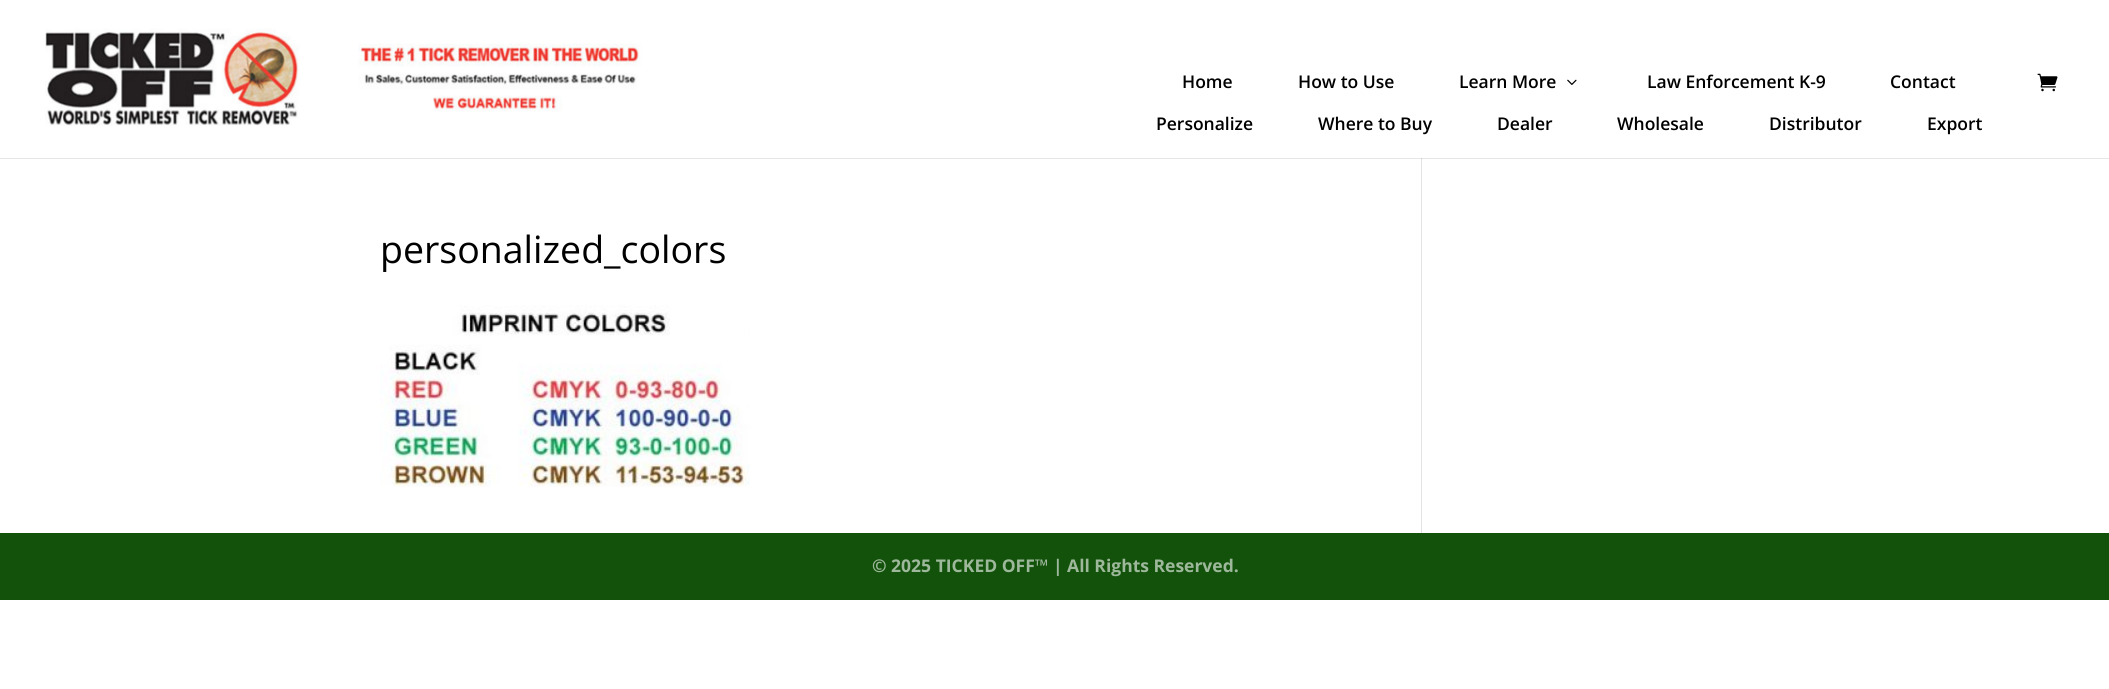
import math
import cairo

surface = cairo.ImageSurface(cairo.FORMAT_RGB24, 2109, 689)
c = cairo.Context(surface)
options = cairo.FontOptions()
options.set_hint_metrics(cairo.HINT_METRICS_OFF)
options.set_hint_style(cairo.HINT_STYLE_NONE)
c.set_font_options(options)
c.set_miter_limit(4)
def C(code):
 c.set_source_rgb(*(v / 255 for v in bytes.fromhex(code[-6:])))
def F(family, size, italic, bold):
 c.select_font_face(family, cairo.FONT_SLANT_ITALIC if italic else cairo.FONT_SLANT_NORMAL, cairo.FONT_WEIGHT_BOLD if bold else cairo.FONT_WEIGHT_NORMAL)
 c.set_font_size(size)
def T(x, y, s):
 c.move_to(x, y)
 c.show_text(s)
def R(x, y, w, h):
 c.rectangle(x, y, w, h)
 c.fill()
def I(path, x, y, w, h):
 c.save()
 c.set_source_surface(cairo.ImageSurface.create_from_png(path), x, y)
 c.rectangle(x, y, w, h)
 c.fill()
 c.restore()
C('ffffff')
c.paint()
C('e6e6e6')
R(0,158,2109,1)
I('1.png',45,28,597,98)
F('Open Sans SemiBold',17.5,0,0)
C('000000')
T(1182,88,'Home')
T(1298,88,'How to Use')
T(1459,88,'Learn More')
I('2.png',1567,79,10,6)
T(1647,88,'Law Enforcement K-9')
T(1890,88,'Contact')
T(1156,130,'Personalize')
T(1318,130,'Where to Buy')
T(1497,130,'Dealer')
T(1617,130,'Wholesale')
T(1769,130,'Distributor')
T(1927,130,'Export')
I('3.png',2037,73,21,19)
F('Open Sans',37.5,0,0)
T(380,263,'personalized_colors')
I('4.png',380,305,370,182)
C('e2e2e2')
R(1421,158,1,375)
C('cbcbcb')
R(1421,158,1,1)
C('12520b')
R(0,533,2109,67)
F('Open Sans',17.5,0,1)
C('9eb89b')
T(872,572,'© 2025 TICKED OFF™ | All Rights Reserved.')
surface.write_to_png('o.png')
